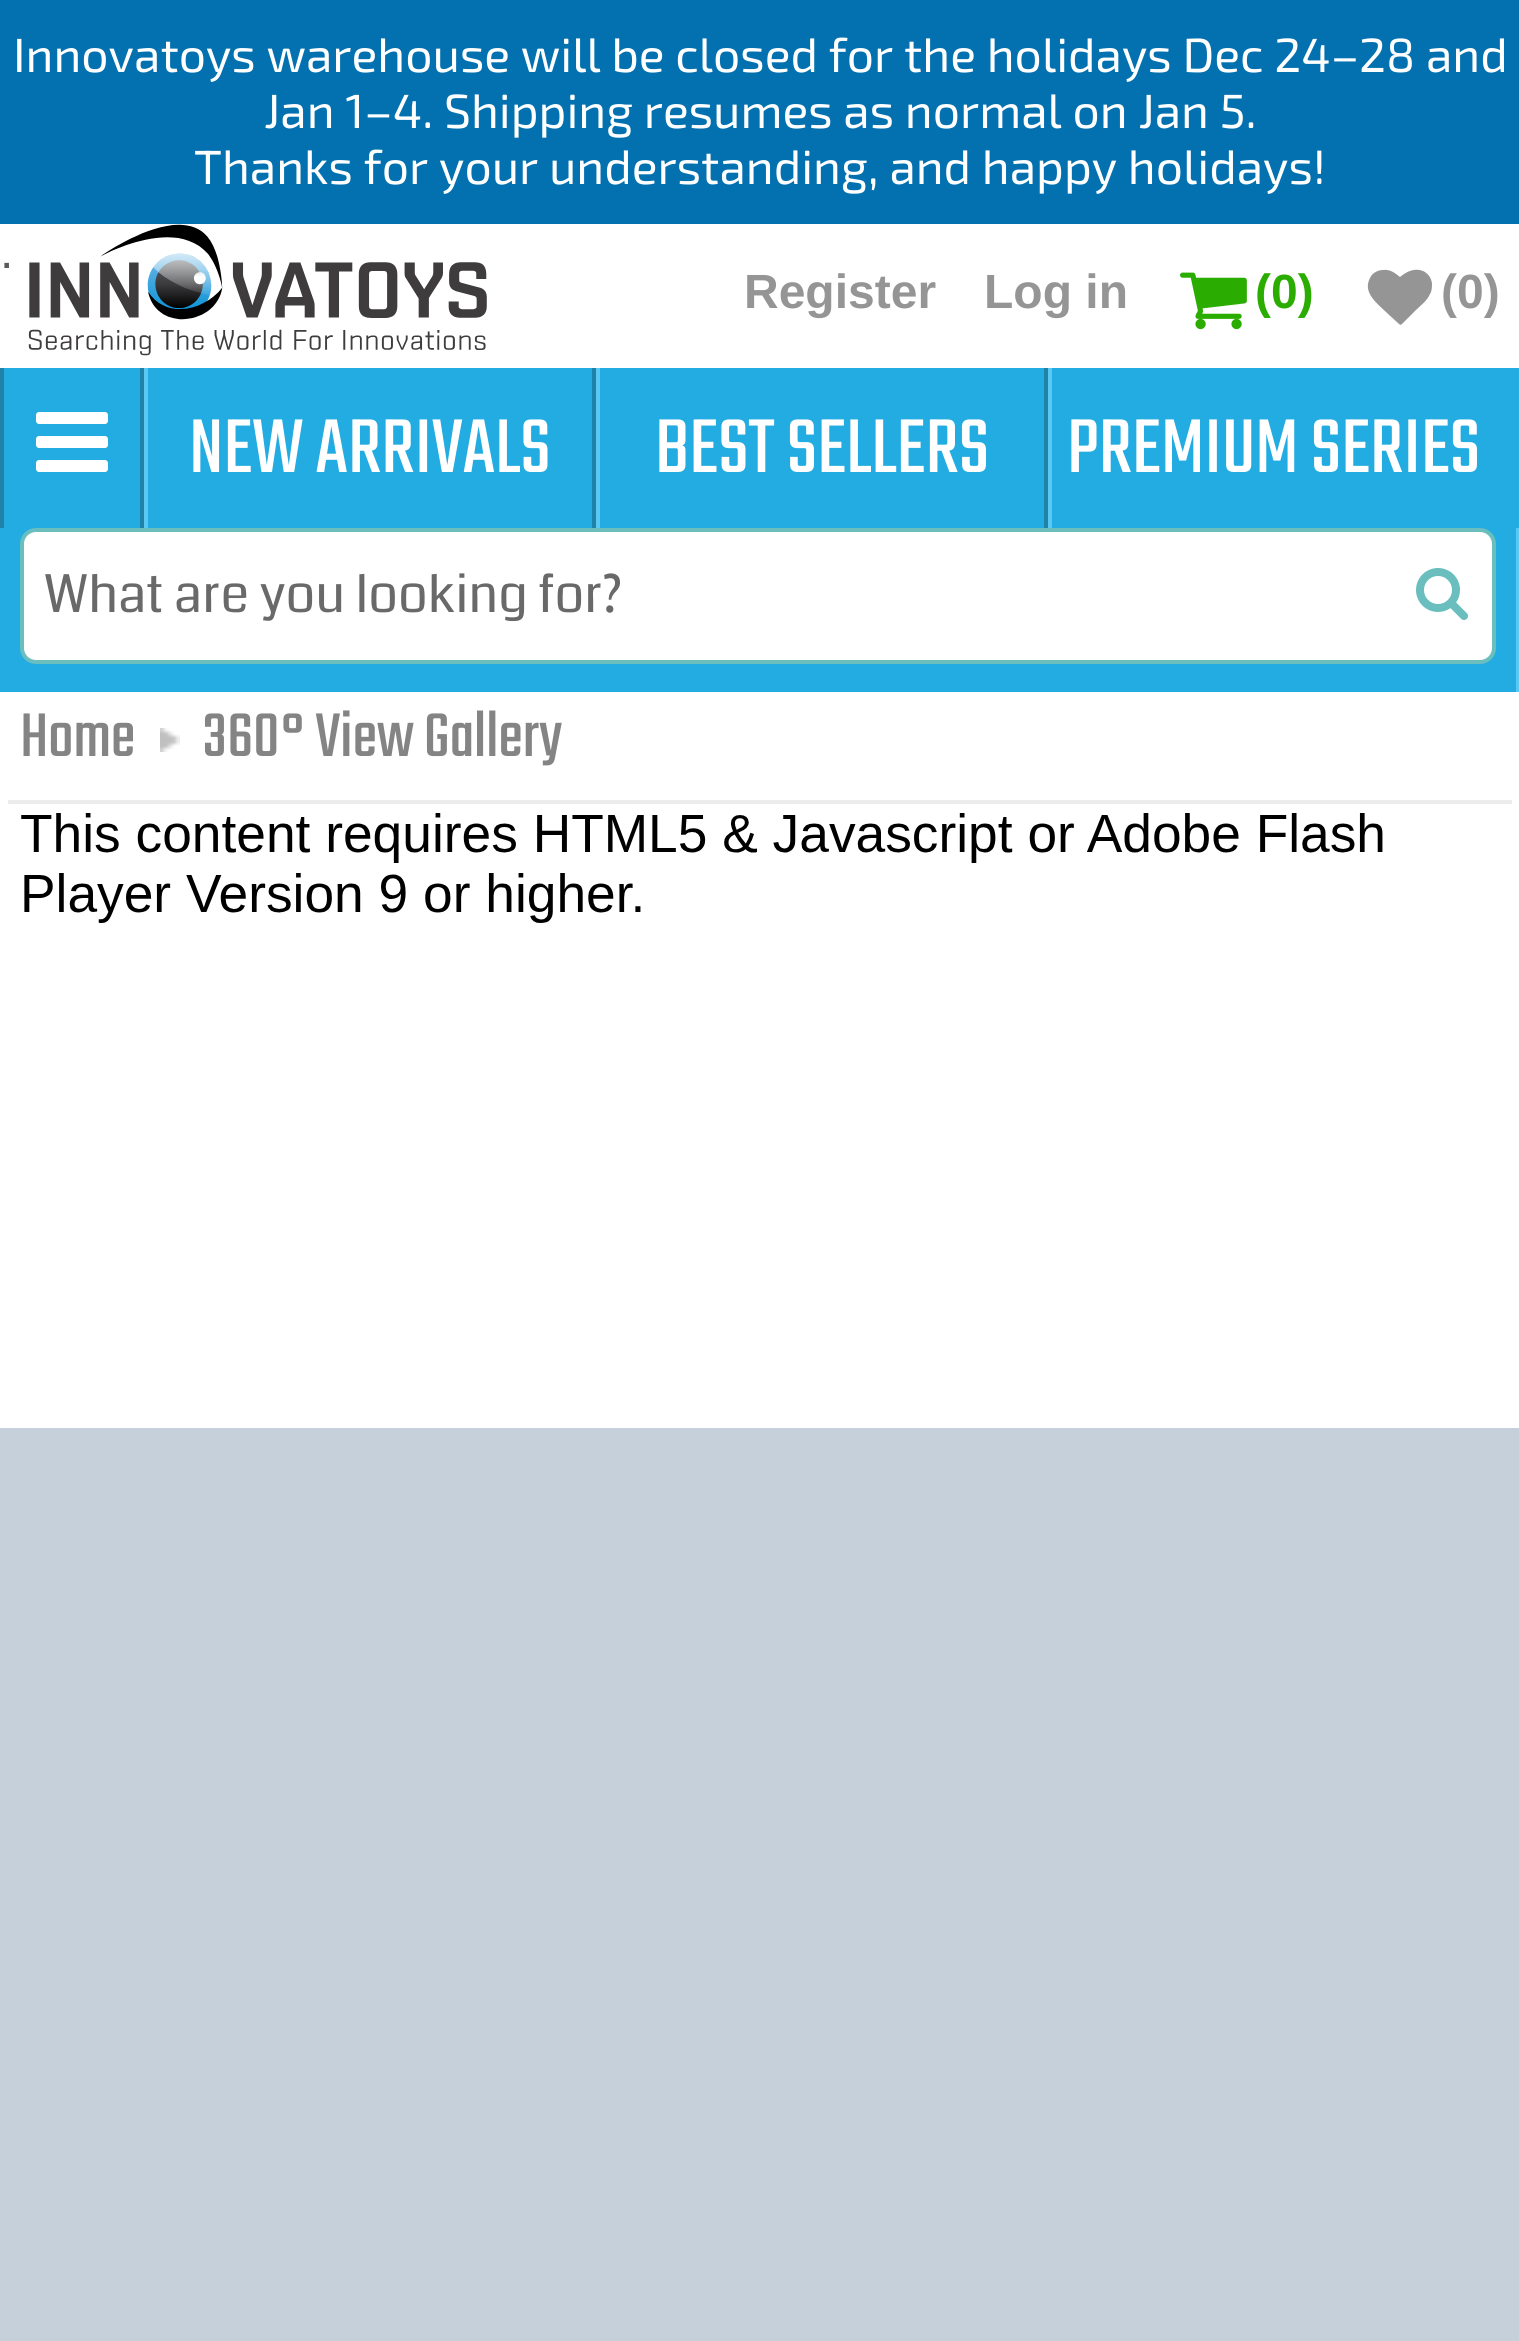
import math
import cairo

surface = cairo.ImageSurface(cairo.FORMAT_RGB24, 1519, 2341)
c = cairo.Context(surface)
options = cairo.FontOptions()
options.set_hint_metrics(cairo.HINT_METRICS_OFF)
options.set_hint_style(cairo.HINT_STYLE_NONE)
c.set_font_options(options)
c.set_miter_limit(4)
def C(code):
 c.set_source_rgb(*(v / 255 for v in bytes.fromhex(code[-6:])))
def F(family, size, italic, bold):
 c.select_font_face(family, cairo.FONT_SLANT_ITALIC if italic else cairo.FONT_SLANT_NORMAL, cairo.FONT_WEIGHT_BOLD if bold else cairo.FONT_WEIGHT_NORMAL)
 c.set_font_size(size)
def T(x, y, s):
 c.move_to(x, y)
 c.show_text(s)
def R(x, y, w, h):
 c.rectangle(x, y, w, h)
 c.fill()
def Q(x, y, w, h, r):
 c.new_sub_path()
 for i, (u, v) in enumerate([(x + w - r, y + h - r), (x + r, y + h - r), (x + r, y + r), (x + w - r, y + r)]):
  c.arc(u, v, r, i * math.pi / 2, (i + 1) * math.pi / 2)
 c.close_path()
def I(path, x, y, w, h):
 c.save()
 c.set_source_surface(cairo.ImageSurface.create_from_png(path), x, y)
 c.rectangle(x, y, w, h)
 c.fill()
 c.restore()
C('c6d0db')
c.paint()
C('0371b0')
R(0,0,1519,224)
F('Exo 2',48,0,0)
C('ffffff')
T(13,72,'Innovatoys warehouse will be closed for the holidays Dec 24–28 and')
T(264,128,'Jan 1–4. Shipping resumes as normal on Jan 5.')
T(194,184,'Thanks for your understanding, and happy holidays!')
R(0,224,1519,1204)
F('Liberation Sans',48,0,0)
C('5c5b5b')
T(0,268,'.')
I('1.png',28,224,459,132)
F('Liberation Sans',48,0,1)
C('959595')
T(744,308,'Register')
T(984,308,'Log in')
I('2.png',1180,272,67,58)
C('2aac01')
T(1255,308,'(0)')
C('959595')
c.new_path()
c.move_to(1402,324)
c.curve_to(1401,325,1400,325,1399,324)
c.line_to(1387,313)
c.curve_to(1378,304,1362,293,1370,278)
c.curve_to(1372,273,1378,270,1383,270)
c.curve_to(1390,269,1395,273,1400,277)
c.curve_to(1407,271,1416,267,1425,272)
c.curve_to(1429,275,1431,278,1432,283)
c.curve_to(1432,287,1432,291,1430,294)
c.curve_to(1427,301,1421,305,1416,310)
c.close_path()
c.fill()
T(1441,308,'(0)')
C('22ace2')
R(0,368,1519,324)
C('1f82a9')
R(0,368,4,160)
I('3.png',36,412,72,60)
R(140,368,4,160)
C('5bc8f3')
R(144,368,4,160)
F('Teko',84,0,0)
C('ffffff')
T(189,472,'NEW ARRIVALS')
C('1f82a9')
R(592,368,4,160)
C('5bc8f3')
R(596,368,4,160)
C('ffffff')
T(655,472,'BEST SELLERS')
C('1f82a9')
R(1044,368,4,160)
C('5bc8f3')
R(1048,368,4,160)
C('ffffff')
T(1067,472,'PREMIUM SERIES')
C('5bc8f3')
R(1516,528,3,164)
C('ffffff')
Q(22,530,1472,132,14)
c.fill_preserve()
C('6abebe')
c.set_line_width(4)
c.stroke()
F('Coda',52,0,0)
C('696969')
T(44,612,'What are you looking for?')
I('4.png',1416,568,52,52)
C('ececec')
R(8,800,1504,4)
F('Teko',68,0,0)
C('858484')
T(20,756,'Home')
I('5.png',160,728,20,24)
T(203,756,'360° View Gallery')
I('6.png',21,813,1362,110)
surface.write_to_png('o.png')
